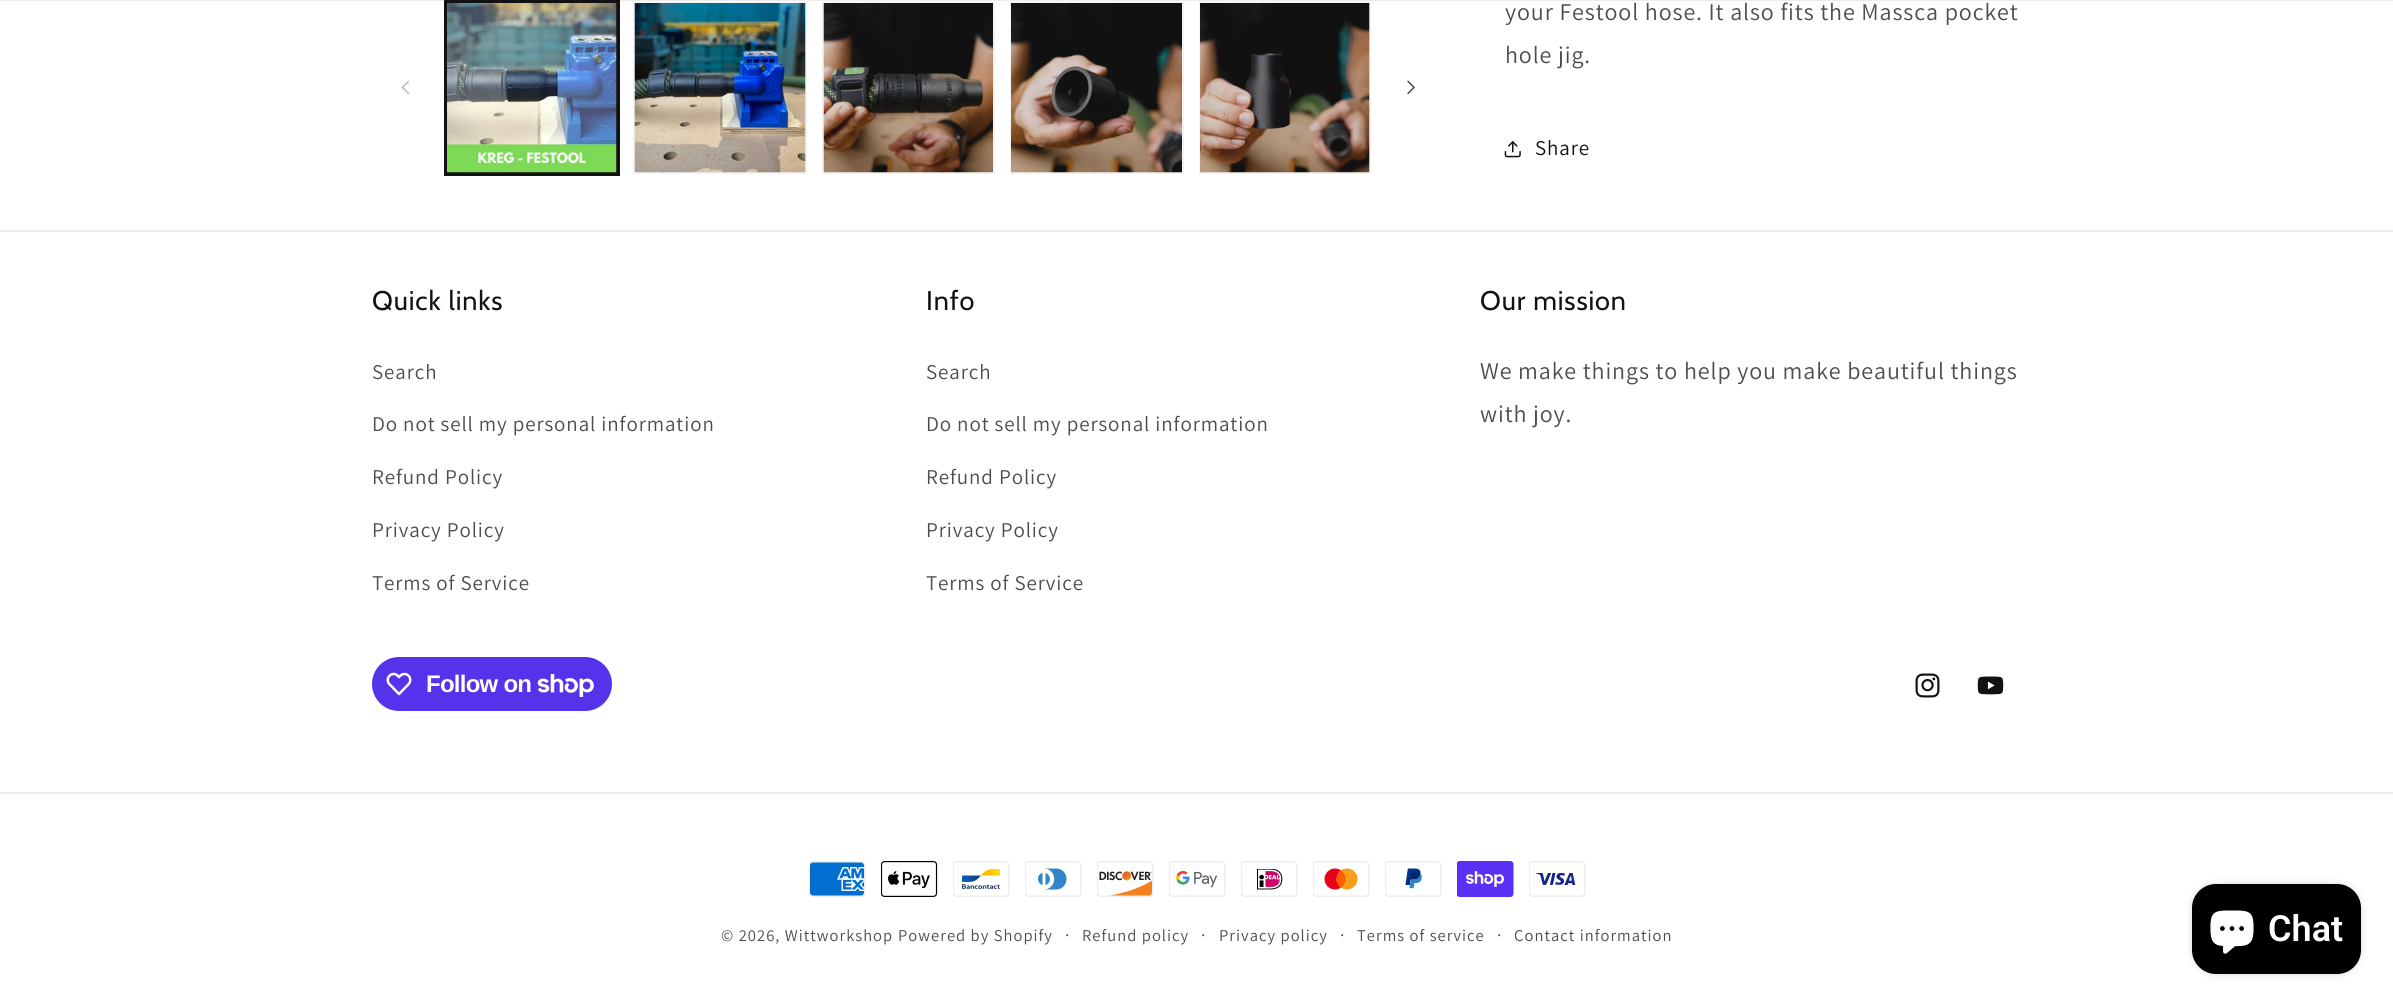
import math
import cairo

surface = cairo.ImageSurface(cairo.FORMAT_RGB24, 2393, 1005)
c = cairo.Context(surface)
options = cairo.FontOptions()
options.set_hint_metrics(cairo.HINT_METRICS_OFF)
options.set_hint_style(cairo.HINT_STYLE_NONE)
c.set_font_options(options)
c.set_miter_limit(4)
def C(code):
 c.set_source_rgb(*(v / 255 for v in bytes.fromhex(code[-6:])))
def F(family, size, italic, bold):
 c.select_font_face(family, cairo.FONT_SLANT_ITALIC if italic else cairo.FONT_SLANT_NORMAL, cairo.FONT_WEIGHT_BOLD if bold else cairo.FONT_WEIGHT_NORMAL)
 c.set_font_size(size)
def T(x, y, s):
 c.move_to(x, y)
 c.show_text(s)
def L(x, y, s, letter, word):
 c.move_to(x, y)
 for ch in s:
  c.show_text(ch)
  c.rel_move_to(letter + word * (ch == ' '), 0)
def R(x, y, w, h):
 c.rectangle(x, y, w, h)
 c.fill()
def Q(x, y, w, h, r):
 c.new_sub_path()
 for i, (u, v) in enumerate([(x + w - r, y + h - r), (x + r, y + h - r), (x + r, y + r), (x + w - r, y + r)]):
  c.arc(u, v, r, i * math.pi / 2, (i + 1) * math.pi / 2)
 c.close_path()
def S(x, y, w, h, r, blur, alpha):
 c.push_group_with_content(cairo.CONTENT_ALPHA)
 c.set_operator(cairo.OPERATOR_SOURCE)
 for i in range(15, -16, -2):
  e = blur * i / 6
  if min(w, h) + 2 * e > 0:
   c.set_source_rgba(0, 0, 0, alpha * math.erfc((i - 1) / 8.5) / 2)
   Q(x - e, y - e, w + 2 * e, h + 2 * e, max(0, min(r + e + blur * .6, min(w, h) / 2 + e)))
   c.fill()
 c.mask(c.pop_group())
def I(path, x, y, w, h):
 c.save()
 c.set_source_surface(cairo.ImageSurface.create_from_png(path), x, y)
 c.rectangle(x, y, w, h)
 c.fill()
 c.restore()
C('ffffff')
c.paint()
c.rectangle(445,1,174,174)
C('121212')
c.stroke()
c.set_source_rgba(0.071,0.071,0.071,0.08)
R(0,0,2393,1)
I('1.png',401,80,8,14)
c.rectangle(447,3,170,170)
C('121212')
c.stroke()
I('2.png',447,3,170,170)
c.rectangle(634,3,172,170)
C('f3f3f3')
c.stroke()
I('3.png',634,3,172,170)
c.rectangle(823,3,171,170)
c.stroke()
I('4.png',823,3,170,170)
c.rectangle(1011,3,172,170)
c.stroke()
I('5.png',1011,3,171,170)
c.rectangle(1200,3,170,170)
c.stroke()
I('6.png',1200,3,170,170)
I('7.png',1407,80,8,15)
F('Assistant',24,0,0)
C('4d4d4d')
L(1505,20,'your Festool hose. It also fits the Massca pocket',.9,0)
L(1505,63,'hole jig.',.9,0)
I('8.png',1504,141,17,17)
F('Assistant',21,0,0)
C('121212')
L(1535,155,'Share',.9,0)
C('ececec')
R(0,230,2393,2)
F('Cabin',27,0,0)
C('121212')
L(372,310,'Quick links',.9,0)
F('Assistant',21,0,0)
C('4d4d4d')
L(372,379,'Search',.9,0)
L(372,431,'Do not sell my personal information',.9,0)
L(372,484,'Refund Policy',.9,0)
L(372,537,'Privacy Policy',.9,0)
L(372,590,'Terms of Service',.9,0)
F('Cabin',27,0,0)
C('121212')
L(926,310,'Info',.9,0)
F('Assistant',21,0,0)
C('4d4d4d')
L(926,379,'Search',.9,0)
L(926,431,'Do not sell my personal information',.9,0)
L(926,484,'Refund Policy',.9,0)
L(926,537,'Privacy Policy',.9,0)
L(926,590,'Terms of Service',.9,0)
F('Cabin',27,0,0)
C('121212')
L(1480,310,'Our mission',.9,0)
F('Assistant',24,0,0)
C('4d4d4d')
L(1480,379,'We make things to help you make beautiful things',.9,0)
L(1480,422,'with joy.',.9,0)
C('5433eb')
Q(372,657,240,54,27)
c.fill()
I('9.png',386,672,26,24)
F('Liberation Sans',24,0,1)
C('ffffff')
L(426,692,'Follow on',-.75,0)
I('10.png',537,674,57,23)
I('11.png',1915,673,25,25)
I('12.png',1977,676,27,19)
C('ececec')
R(0,792,2393,2)
I('13.png',809,861,57,36)
I('14.png',881,861,57,36)
I('15.png',953,861,57,36)
I('16.png',1025,861,57,36)
I('17.png',1097,861,57,36)
I('18.png',1169,861,57,36)
I('19.png',1241,861,57,36)
I('20.png',1313,861,57,36)
I('21.png',1385,861,57,36)
I('22.png',1457,861,57,36)
I('23.png',1529,861,57,36)
F('Assistant',16.5,0,0)
C('4d4d4d')
L(721,941,'© 2026, Wittworkshop',1.05,0)
L(898,941,'Powered by Shopify',1.05,0)
F('Assistant',18,0,0)
L(1065,941,'·',1.05,0)
F('Assistant',16.5,0,0)
L(1082,941,'Refund policy',1.05,0)
F('Assistant',18,0,0)
L(1201,941,'·',1.05,0)
F('Assistant',16.5,0,0)
L(1219,941,'Privacy policy',1.05,0)
F('Assistant',18,0,0)
L(1340,941,'·',1.05,0)
F('Assistant',16.5,0,0)
L(1357,941,'Terms of service',1.05,0)
F('Assistant',18,0,0)
L(1497,941,'·',1.05,0)
F('Assistant',16.5,0,0)
L(1514,941,'Contact information',1.05,0)
C('000000')
S(2192,884,169,90,24,4,.15)
C('000000')
Q(2192,884,169,90,24)
c.fill()
I('24.png',2210,910,44,44)
F('Roboto SemiBold',36,0,0)
C('ffffff')
T(2268,941,'Chat')
surface.write_to_png('o.png')
